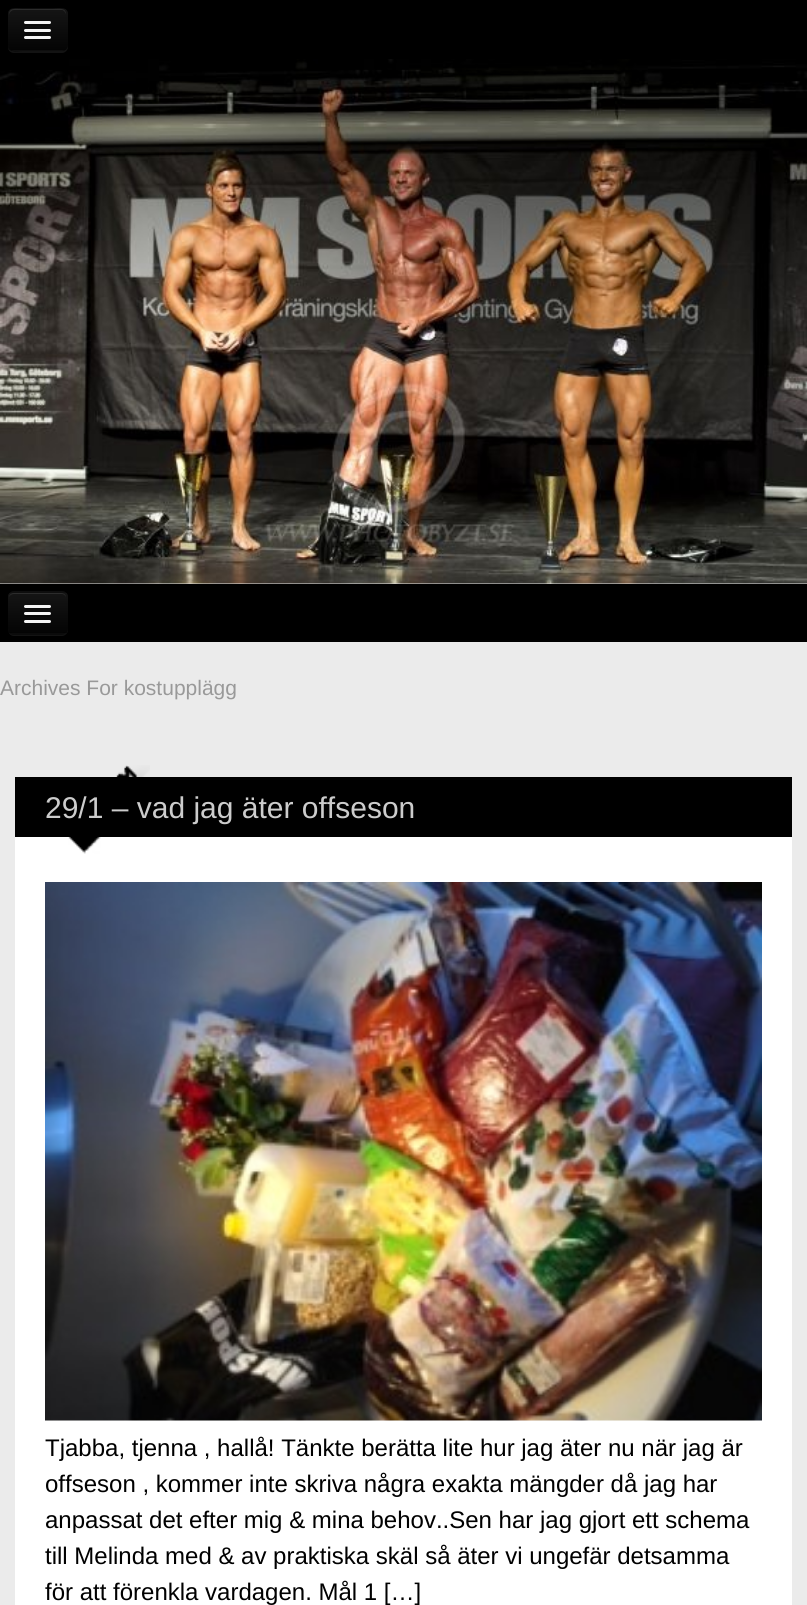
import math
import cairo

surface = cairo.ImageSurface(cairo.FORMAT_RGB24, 807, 1605)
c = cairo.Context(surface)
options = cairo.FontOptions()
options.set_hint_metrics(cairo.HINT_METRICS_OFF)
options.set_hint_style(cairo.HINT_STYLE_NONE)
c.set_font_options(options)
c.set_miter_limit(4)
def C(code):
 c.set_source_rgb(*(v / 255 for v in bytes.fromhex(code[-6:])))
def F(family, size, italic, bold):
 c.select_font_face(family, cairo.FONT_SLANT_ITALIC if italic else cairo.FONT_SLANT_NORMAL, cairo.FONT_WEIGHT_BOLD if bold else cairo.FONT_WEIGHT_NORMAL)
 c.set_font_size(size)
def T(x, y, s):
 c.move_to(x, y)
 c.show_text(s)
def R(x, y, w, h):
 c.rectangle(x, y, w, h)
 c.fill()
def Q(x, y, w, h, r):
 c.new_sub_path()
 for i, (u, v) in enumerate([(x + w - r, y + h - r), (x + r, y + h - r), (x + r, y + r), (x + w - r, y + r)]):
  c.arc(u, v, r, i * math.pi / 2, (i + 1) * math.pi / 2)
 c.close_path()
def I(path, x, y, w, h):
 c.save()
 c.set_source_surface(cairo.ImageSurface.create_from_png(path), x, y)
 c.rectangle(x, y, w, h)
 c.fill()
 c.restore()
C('ebebeb')
c.paint()
C('000000')
R(0,0,807,59)
C('131313')
c.new_path()
c.move_to(8,47)
c.curve_to(8,51,11,53,14,53)
c.line_to(62,53)
c.curve_to(65,53,68,50,68,47)
c.line_to(68,15)
c.line_to(67,12)
c.line_to(67,46)
c.line_to(66,48)
c.curve_to(66,50,64,51,63,51)
c.line_to(22,51)
c.curve_to(17,51,10,53,8,47)
c.close_path()
c.fill()
C('0e0e0e')
Q(8,8,60,43,6)
c.fill()
c.save()
Q(8,8,60,43,6)
c.clip()
gradient = cairo.LinearGradient(38,9,38,50)
gradient.add_color_stop_rgba(0,0.082,0.082,0.082,1)
gradient.add_color_stop_rgba(1,0.016,0.016,0.016,1)
c.set_source(gradient)
R(8,9,60,41)
c.restore()
C('2c2c2c')
c.new_path()
c.move_to(14,10)
c.line_to(62,10)
c.curve_to(64,10,66,13,66,15)
c.curve_to(66,7,59,9,53,9)
c.line_to(22,9)
c.curve_to(16,9,9,7,9,15)
c.curve_to(9,13,11,10,14,10)
c.close_path()
c.fill()
C('0b0b0b')
c.new_path()
c.move_to(24.5,23.5)
c.line_to(24,25)
c.curve_to(24.5,27,29,26,29.5,26)
c.line_to(45.5,26)
c.curve_to(46,26,50.5,27,51,25)
c.line_to(50.5,23.5)
c.line_to(49.5,24)
c.line_to(25.5,24)
c.close_path()
c.fill()
C('f5f5f5')
Q(24,21,27,3,1.5)
c.fill()
C('080808')
c.new_path()
c.move_to(24,30.5)
c.curve_to(22.5,34,29.5,33,29.5,33)
c.line_to(45.5,33)
c.curve_to(45.5,33,52.5,34,51,30.5)
c.curve_to(50.5,31,50,31.5,49.5,31.5)
c.line_to(25.5,31.5)
c.curve_to(25,31.5,24.5,31,24,30.5)
c.close_path()
c.fill()
C('f5f5f5')
Q(24,29,27,3,1.5)
c.fill()
Q(24,36,27,3,1.5)
c.fill()
I('1.png',0,59,807,525)
C('000000')
R(0,584,807,58)
C('131313')
c.new_path()
c.move_to(8,631)
c.curve_to(9,634,11,636,14,636)
c.line_to(62,636)
c.curve_to(65,636,68,633,68,630)
c.line_to(68,599)
c.line_to(67,597)
c.line_to(68,623)
c.curve_to(68,635,65,634,54,634)
c.line_to(22,634)
c.curve_to(17,634,10,636,8,631)
c.close_path()
c.fill()
C('0e0e0e')
Q(8,591,60,44,6)
c.fill()
c.save()
Q(8,591,60,44,6)
c.clip()
gradient = cairo.LinearGradient(38,593,38,633)
gradient.add_color_stop_rgba(0,0.082,0.082,0.082,1)
gradient.add_color_stop_rgba(1,0.016,0.016,0.016,1)
c.set_source(gradient)
R(8,593,60,40)
c.restore()
C('2c2c2c')
c.new_path()
c.move_to(14,594)
c.line_to(62,594)
c.curve_to(64,594,66,596,66,598)
c.curve_to(66,595,64,593,61,593)
c.line_to(14,593)
c.curve_to(11,593,9,595,9,598)
c.curve_to(9,596,11,594,14,594)
c.close_path()
c.fill()
c.new_path()
c.move_to(65,632)
c.curve_to(64,633,63,634,61.5,634)
c.line_to(13.5,634)
c.curve_to(12,634,11,633,10,632)
c.set_source_rgba(0,0,0,0.25)
c.set_line_width(1.5)
c.stroke()
C('0b0b0b')
c.new_path()
c.move_to(24,607)
c.curve_to(22.5,610,29.5,609,29.5,609)
c.line_to(45.5,609)
c.curve_to(45.5,609,52.5,610,51,607)
c.curve_to(50.5,607,50,607.5,49.5,607.5)
c.line_to(25.5,607.5)
c.curve_to(25,607.5,24.5,607,24,607)
c.close_path()
c.fill()
C('f5f5f5')
Q(24,605,27,3,1.5)
c.fill()
C('080808')
c.new_path()
c.move_to(24.5,614.5)
c.line_to(24,616)
c.curve_to(24.5,618,29,617,29.5,617)
c.line_to(45.5,617)
c.curve_to(46,617,50.5,618,51,616)
c.line_to(50.5,614.5)
c.line_to(49.5,615)
c.line_to(25.5,615)
c.close_path()
c.fill()
C('f5f5f5')
Q(24,612,27,3,1.5)
c.fill()
Q(24,620,27,3,1.5)
c.fill()
F('Liberation Sans',21,0,0)
C('999999')
T(0,695,'Archives For kostupplägg')
I('2.png',17,765,133,12)
C('ffffff')
R(15,837,777,768)
C('000000')
R(15,777,777,60)
F('Liberation Sans',30,0,0)
C('cccccc')
T(45,818,'29/1 – vad jag äter offseson')
I('3.png',68,837,33,17)
I('4.png',45,882,717,539)
F('Liberation Sans',24,0,0)
C('000000')
T(45,1456,'Tjabba, tjenna , hallå! Tänkte berätta lite hur jag äter nu när jag är')
T(45,1492,'offseson , kommer inte skriva några exakta mängder då jag har')
T(45,1528,'anpassat det efter mig & mina behov..Sen har jag gjort ett schema')
T(45,1564,'till Melinda med & av praktiska skäl så äter vi ungefär detsamma')
T(45,1600,'för att förenkla vardagen. Mål 1 […]')
surface.write_to_png('o.png')
